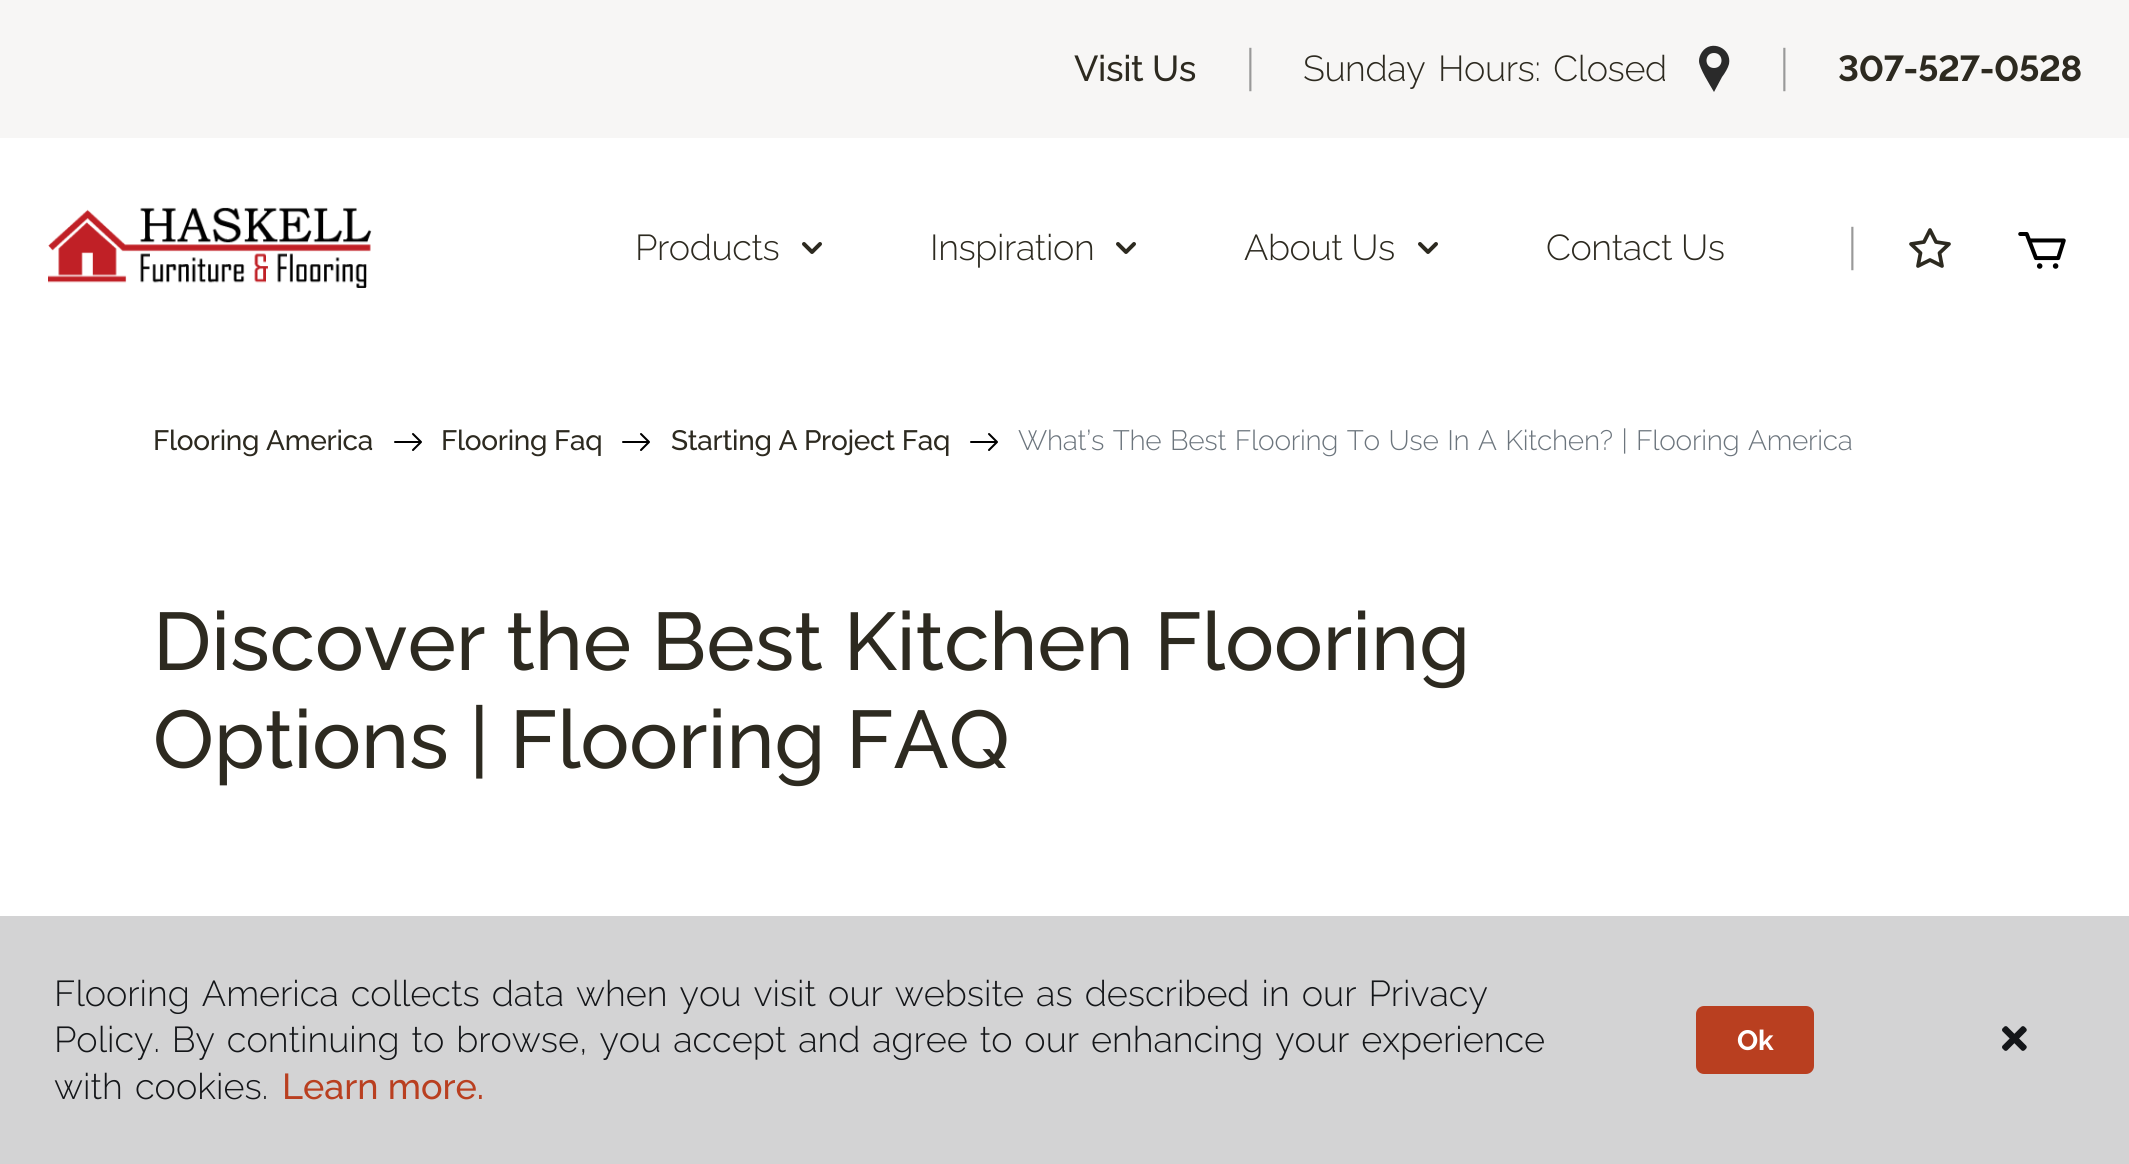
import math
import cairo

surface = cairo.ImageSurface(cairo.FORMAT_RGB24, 2129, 1164)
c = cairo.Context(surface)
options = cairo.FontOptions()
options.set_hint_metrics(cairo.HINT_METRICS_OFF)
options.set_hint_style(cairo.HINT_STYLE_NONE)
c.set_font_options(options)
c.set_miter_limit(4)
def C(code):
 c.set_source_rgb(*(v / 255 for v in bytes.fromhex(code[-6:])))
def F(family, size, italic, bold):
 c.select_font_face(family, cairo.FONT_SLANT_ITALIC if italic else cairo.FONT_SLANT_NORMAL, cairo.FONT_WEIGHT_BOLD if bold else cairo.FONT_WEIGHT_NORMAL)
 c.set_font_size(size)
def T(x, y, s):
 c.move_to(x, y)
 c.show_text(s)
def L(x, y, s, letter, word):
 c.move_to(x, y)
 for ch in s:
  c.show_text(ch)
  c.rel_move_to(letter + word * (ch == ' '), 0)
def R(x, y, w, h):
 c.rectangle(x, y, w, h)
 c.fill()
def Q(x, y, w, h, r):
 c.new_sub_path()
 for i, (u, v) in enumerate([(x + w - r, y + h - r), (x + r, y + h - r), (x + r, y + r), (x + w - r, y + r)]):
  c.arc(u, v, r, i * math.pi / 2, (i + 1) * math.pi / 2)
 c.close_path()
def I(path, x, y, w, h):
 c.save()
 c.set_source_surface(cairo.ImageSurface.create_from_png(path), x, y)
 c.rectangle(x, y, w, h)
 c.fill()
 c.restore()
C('ffffff')
c.paint()
C('f7f6f5')
R(0,0,2129,138)
F('Raleway Medium',36,0,0)
C('2d2a20')
L(1074,81,'Visit Us',-.4,0)
F('Raleway Light',48,0,0)
C('999999')
T(1245,85,'|')
F('Raleway Light',36,0,0)
C('2d2a20')
L(1303,81,'Sunday Hours: Closed',-.4,4)
C('2a2a2a')
c.new_path()
c.move_to(1714,92)
c.curve_to(1710,85,1699,68,1699,61)
c.curve_to(1699,58,1700,55,1702,52)
c.curve_to(1711,39,1732,48,1729,64)
c.curve_to(1728,68,1725,73,1722,77)
c.close_path()
c.move_to(1714,68)
c.curve_to(1724,68,1724,53,1714,53)
c.curve_to(1704,53,1704,68,1714,68)
c.close_path()
c.fill()
F('Raleway Light',48,0,0)
C('999999')
T(1779,85,'|')
F('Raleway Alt',36,0,1)
C('2d2a20')
L(1838,81,'307-527-0528',-.4,0)
I('1.png',48,207,324,81)
F('Raleway Light',36,0,0)
L(635,260,'Products',-.4,0)
I('2.png',802,242,20,12)
L(930,260,'Inspiration',-.4,0)
I('2.png',1116,242,20,12)
L(1244,260,'About Us',-.4,0)
I('2.png',1418,242,20,12)
L(1546,260,'Contact Us',-.4,0)
F('Raleway Light',48,0,0)
C('999999')
T(1847,264,'|')
c.new_path()
c.move_to(1930,260)
c.line_to(1918,266)
c.line_to(1920.5,253)
c.line_to(1911,244)
c.line_to(1924,242)
c.line_to(1930,230)
c.line_to(1936,242)
c.line_to(1949,244)
c.line_to(1939.5,253)
c.line_to(1942,266)
c.close_path()
C('2d2a20')
c.set_line_width(3.7)
c.set_line_cap(cairo.LINE_CAP_ROUND)
c.set_line_join(cairo.LINE_JOIN_ROUND)
c.stroke()
I('3.png',2018,232,48,37)
F('Raleway Medium',28,0,0)
L(153,450,'Flooring America',-.28,0)
I('4.png',394,433,28,18)
L(441,450,'Flooring Faq',-.28,0)
I('4.png',622,433,28,18)
L(671,450,'Starting A Project Faq',-.28,0)
I('4.png',970,433,28,18)
F('Raleway Light',28,0,0)
C('6c757d')
L(1018,450,'What’s The Best Flooring To Use In A Kitchen? | Flooring America',-.28,1.75)
F('Raleway Medium',81.5,0,0)
C('2d2a20')
T(153,670,'Discover the Best Kitchen Flooring')
T(153,768,'Options | Flooring FAQ')
C('d3d3d4')
R(0,916,2129,248)
F('Raleway Light',36,0,0)
C('141619')
L(54,1006,'Flooring America collects data when you visit our website as described in our Privacy',0,2.75)
L(54,1052,'Policy. By continuing to browse, you accept and agree to our enhancing your experience',0,2.6)
L(54,1099,'with cookies.',0,3)
F('Raleway Medium',36,0,0)
C('b93f20')
T(282,1099,'Learn more.')
Q(1696,1006,118,68,8)
c.fill()
F('Raleway',28,0,1)
C('ffffff')
L(1737,1050,'Ok',-.28,0)
I('5.png',2002,1026,25,25)
surface.write_to_png('o.png')
